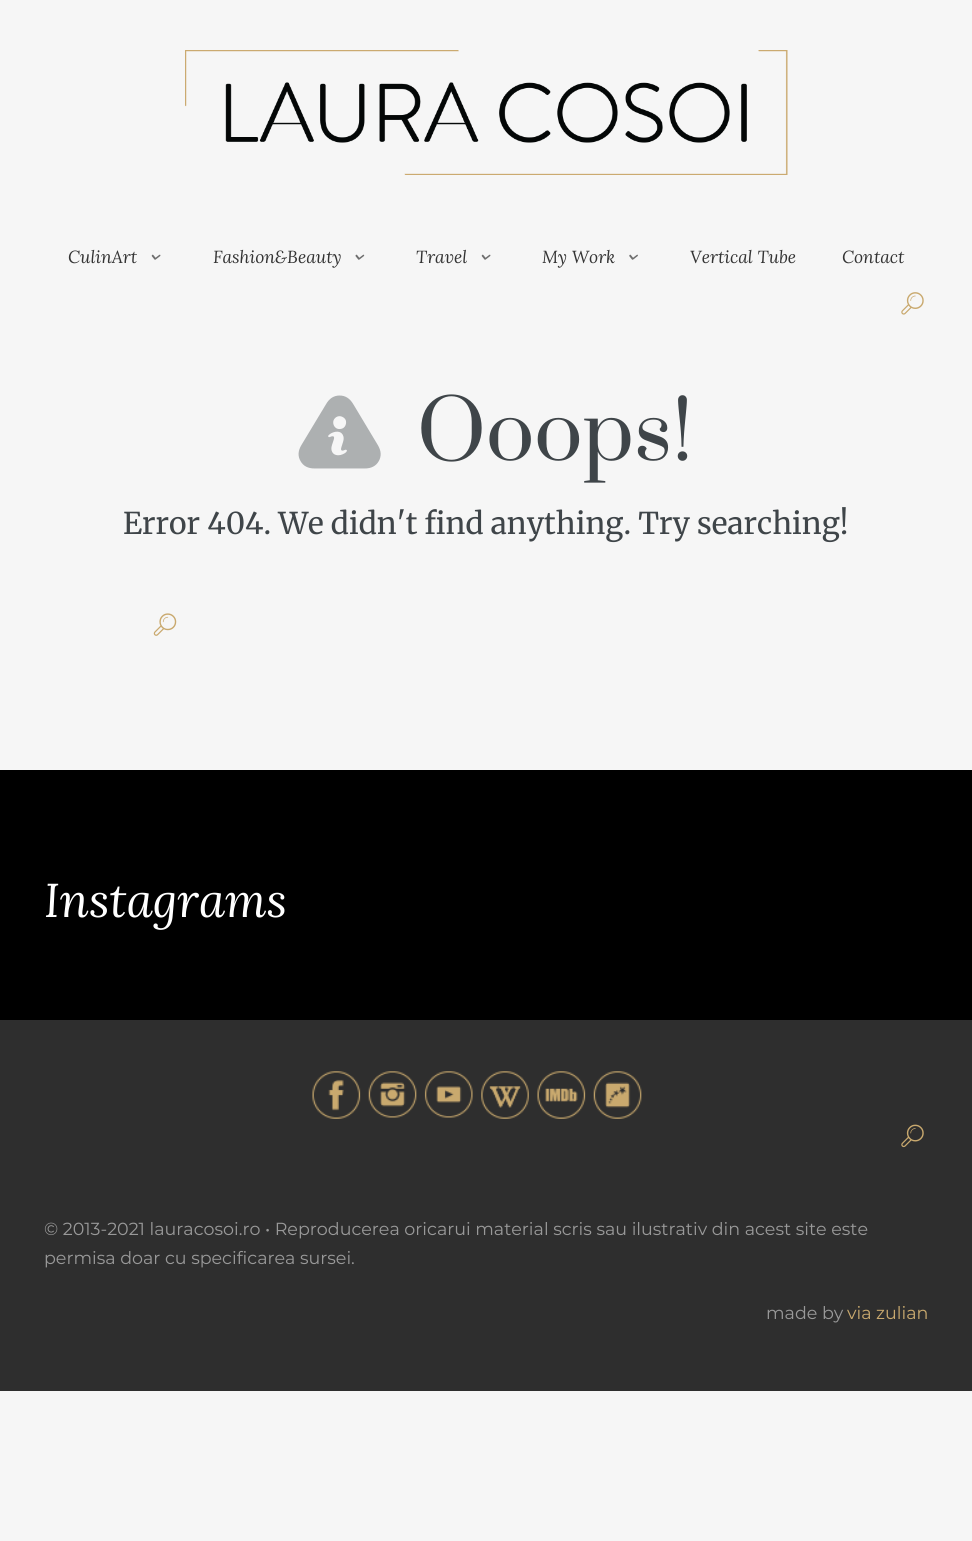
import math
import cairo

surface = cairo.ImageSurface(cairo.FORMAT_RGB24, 972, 1541)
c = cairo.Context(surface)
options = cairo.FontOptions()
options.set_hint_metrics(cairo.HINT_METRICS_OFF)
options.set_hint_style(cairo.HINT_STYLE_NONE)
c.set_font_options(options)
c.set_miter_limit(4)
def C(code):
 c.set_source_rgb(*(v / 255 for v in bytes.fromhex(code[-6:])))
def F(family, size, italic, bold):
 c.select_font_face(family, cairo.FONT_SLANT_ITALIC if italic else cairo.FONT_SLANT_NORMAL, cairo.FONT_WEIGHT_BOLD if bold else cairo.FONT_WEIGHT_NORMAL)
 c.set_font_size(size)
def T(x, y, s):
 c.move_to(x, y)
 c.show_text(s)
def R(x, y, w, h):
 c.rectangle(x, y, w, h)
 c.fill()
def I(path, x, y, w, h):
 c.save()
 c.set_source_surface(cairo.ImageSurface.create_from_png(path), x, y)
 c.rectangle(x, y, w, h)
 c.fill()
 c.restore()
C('f6f6f6')
c.paint()
I('1.png',185,50,603,125)
F('Lora',17.5,1,0)
C('343434')
T(68,263,'CulinArt')
I('2.png',151,254,10,6)
T(213,263,'Fashion&Beauty')
I('3.png',355,254,10,6)
T(416,263,'Travel')
I('2.png',481,254,10,6)
T(542,263,'My Work')
I('4.png',629,254,9,6)
T(690,263,'Vertical Tube')
T(842,263,'Contact')
I('5.png',901,292,23,23)
I('6.png',298,395,83,74)
F('Prata',80,0,0)
C('3f4549')
T(417,460,'Ooops!')
F('Merriweather',30,0,0)
T(123,534,'Error 404. We didn\'t find anything. Try searching!')
I('7.png',153,613,24,23)
C('000000')
R(0,770,972,250)
F('Lora',47.5,1,0)
C('ffffff')
T(44,917,'Instagrams')
C('2e2e2e')
R(0,1020,972,371)
I('8.png',312,1071,49,48)
I('9.png',368,1071,49,47)
I('10.png',424,1071,49,47)
I('11.png',481,1071,48,48)
I('12.png',537,1071,49,48)
I('13.png',593,1071,49,48)
I('14.png',901,1124,23,24)
F('Montserrat',17.5,0,0)
C('999999')
T(44,1235,'© 2013-2021 lauracosoi.ro • Reproducerea oricarui material scris sau ilustrativ din acest site este')
T(44,1264,'permisa doar cu specificarea sursei.')
T(766,1319,'made by')
C('c9a96e')
T(847,1319,'via zulian')
surface.write_to_png('o.png')
